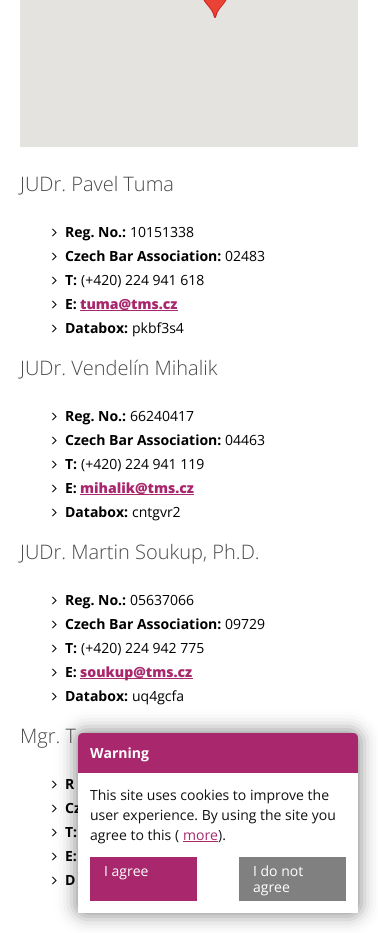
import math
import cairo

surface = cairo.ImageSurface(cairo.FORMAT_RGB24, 378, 933)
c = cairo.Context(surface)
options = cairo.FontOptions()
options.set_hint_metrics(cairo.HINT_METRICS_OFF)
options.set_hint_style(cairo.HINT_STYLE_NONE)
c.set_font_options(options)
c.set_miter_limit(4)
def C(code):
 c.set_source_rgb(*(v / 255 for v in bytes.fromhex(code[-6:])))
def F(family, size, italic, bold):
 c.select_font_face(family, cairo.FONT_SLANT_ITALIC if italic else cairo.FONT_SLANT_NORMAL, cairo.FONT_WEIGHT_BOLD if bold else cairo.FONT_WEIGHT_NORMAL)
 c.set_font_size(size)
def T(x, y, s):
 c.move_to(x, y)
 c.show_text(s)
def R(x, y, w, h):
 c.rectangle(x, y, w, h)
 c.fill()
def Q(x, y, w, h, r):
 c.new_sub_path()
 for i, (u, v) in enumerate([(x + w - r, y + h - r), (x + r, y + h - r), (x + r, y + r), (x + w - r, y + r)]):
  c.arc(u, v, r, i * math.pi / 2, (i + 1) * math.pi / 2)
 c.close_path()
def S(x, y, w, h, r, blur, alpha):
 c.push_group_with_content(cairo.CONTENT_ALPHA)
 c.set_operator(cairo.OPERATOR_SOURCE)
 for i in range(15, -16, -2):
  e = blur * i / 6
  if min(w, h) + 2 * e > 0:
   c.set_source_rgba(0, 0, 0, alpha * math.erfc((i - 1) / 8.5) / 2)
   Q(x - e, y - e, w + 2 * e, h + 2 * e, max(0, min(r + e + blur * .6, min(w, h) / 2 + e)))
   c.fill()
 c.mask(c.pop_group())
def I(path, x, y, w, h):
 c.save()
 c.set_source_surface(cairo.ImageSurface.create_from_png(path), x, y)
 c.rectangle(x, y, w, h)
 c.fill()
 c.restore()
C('ffffff')
c.paint()
C('e5e3df')
R(20,0,338,147)
I('1.png',203,0,24,18)
F('Open Sans Light',20,0,0)
C('494949')
T(20,191,'JUDr. Pavel Tuma')
I('2.png',52,228,5,9)
F('Open Sans',14,0,1)
C('000000')
T(65,237,'Reg. No.:')
F('Open Sans',14,0,0)
T(130,237,'10151338')
I('2.png',52,252,5,9)
F('Open Sans',14,0,1)
T(65,261,'Czech Bar Association:')
F('Open Sans',14,0,0)
T(225,261,'02483')
I('2.png',52,276,5,9)
F('Open Sans',14,0,1)
T(65,285,'T:')
F('Open Sans',14,0,0)
T(81,285,'(+420) 224 941 618')
I('2.png',52,300,5,9)
F('Open Sans',14,0,1)
T(65,309,'E:')
C('a8276d')
R(80,310,98,1)
F('Open Sans ExtraBold',14,0,0)
T(80,309,'tuma@tms.cz')
I('2.png',52,324,5,9)
F('Open Sans',14,0,1)
C('000000')
T(65,333,'Databox:')
F('Open Sans',14,0,0)
T(132,333,'pkbf3s4')
F('Open Sans Light',20,0,0)
C('494949')
T(20,375,'JUDr. Vendelín Mihalik')
I('2.png',52,412,5,9)
F('Open Sans',14,0,1)
C('000000')
T(65,421,'Reg. No.:')
F('Open Sans',14,0,0)
T(130,421,'66240417')
I('2.png',52,436,5,9)
F('Open Sans',14,0,1)
T(65,445,'Czech Bar Association:')
F('Open Sans',14,0,0)
T(225,445,'04463')
I('2.png',52,460,5,9)
F('Open Sans',14,0,1)
T(65,469,'T:')
F('Open Sans',14,0,0)
T(81,469,'(+420) 224 941 119')
I('2.png',52,484,5,9)
F('Open Sans',14,0,1)
T(65,493,'E:')
C('a8276d')
R(80,494,114,1)
F('Open Sans ExtraBold',14,0,0)
T(80,493,'mihalik@tms.cz')
I('2.png',52,508,5,9)
F('Open Sans',14,0,1)
C('000000')
T(65,517,'Databox:')
F('Open Sans',14,0,0)
T(132,517,'cntgvr2')
F('Open Sans Light',20,0,0)
C('494949')
T(20,559,'JUDr. Martin Soukup, Ph.D.')
I('2.png',52,596,5,9)
F('Open Sans',14,0,1)
C('000000')
T(65,605,'Reg. No.:')
F('Open Sans',14,0,0)
T(130,605,'05637066')
I('2.png',52,620,5,9)
F('Open Sans',14,0,1)
T(65,629,'Czech Bar Association:')
F('Open Sans',14,0,0)
T(225,629,'09729')
I('2.png',52,644,5,9)
F('Open Sans',14,0,1)
T(65,653,'T:')
F('Open Sans',14,0,0)
T(81,653,'(+420) 224 942 775')
I('2.png',52,668,5,9)
F('Open Sans',14,0,1)
T(65,677,'E:')
C('a8276d')
R(80,678,113,1)
F('Open Sans ExtraBold',14,0,0)
T(80,677,'soukup@tms.cz')
I('2.png',52,692,5,9)
F('Open Sans',14,0,1)
C('000000')
T(65,701,'Databox:')
F('Open Sans',14,0,0)
T(132,701,'uq4gcfa')
F('Open Sans Light',20,0,0)
C('494949')
T(20,743,'Mgr. T')
I('2.png',52,780,5,9)
F('Open Sans',14,0,1)
C('000000')
T(65,789,'R')
I('2.png',52,804,5,9)
T(65,813,'Cz')
I('2.png',52,828,5,9)
T(65,837,'T:')
I('2.png',52,852,5,9)
T(65,861,'E:')
I('2.png',52,876,5,9)
T(65,885,'D')
C('101010')
S(78,733,280,180,5,10,.6)
C('a8276d')
c.new_path()
c.move_to(83,733)
c.line_to(353,733)
c.curve_to(356,733,358,735,358,738)
c.line_to(358,773)
c.line_to(78,773)
c.line_to(78,738)
c.curve_to(78,735,80,733,83,733)
c.close_path()
c.fill()
C('ffffff')
T(90,758,'Warning')
R(78,773,280,140)
F('Open Sans',14,0,0)
C('101010')
T(90,800,'This site uses cookies to improve the')
T(90,820,'user experience. By using the site you')
T(90,840,'agree to this (')
C('a8276d')
T(183,840,'more')
R(183,841,35,1)
C('101010')
T(218,840,').')
C('a8276d')
R(90,857,107,44)
C('ffffff')
T(104,876,'I agree')
C('808080')
R(239,857,107,44)
C('ffffff')
T(253,876,'I do not')
T(253,892,'agree')
surface.write_to_png('o.png')
